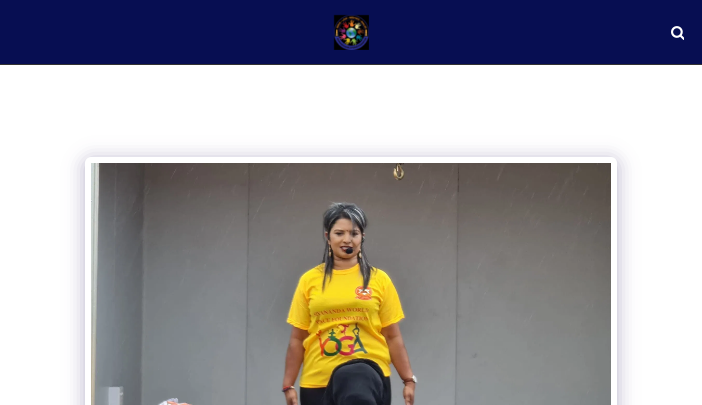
import math
import cairo

surface = cairo.ImageSurface(cairo.FORMAT_RGB24, 702, 405)
c = cairo.Context(surface)
options = cairo.FontOptions()
options.set_hint_metrics(cairo.HINT_METRICS_OFF)
options.set_hint_style(cairo.HINT_STYLE_NONE)
c.set_font_options(options)
c.set_miter_limit(4)
def C(code):
 c.set_source_rgb(*(v / 255 for v in bytes.fromhex(code[-6:])))
def R(x, y, w, h):
 c.rectangle(x, y, w, h)
 c.fill()
def Q(x, y, w, h, r):
 c.new_sub_path()
 for i, (u, v) in enumerate([(x + w - r, y + h - r), (x + r, y + h - r), (x + r, y + r), (x + w - r, y + r)]):
  c.arc(u, v, r, i * math.pi / 2, (i + 1) * math.pi / 2)
 c.close_path()
def S(x, y, w, h, r, blur, alpha):
 c.push_group_with_content(cairo.CONTENT_ALPHA)
 c.set_operator(cairo.OPERATOR_SOURCE)
 for i in range(15, -16, -2):
  e = blur * i / 6
  if min(w, h) + 2 * e > 0:
   c.set_source_rgba(0, 0, 0, alpha * math.erfc((i - 1) / 8.5) / 2)
   Q(x - e, y - e, w + 2 * e, h + 2 * e, max(0, min(r + e + blur * .6, min(w, h) / 2 + e)))
   c.fill()
 c.mask(c.pop_group())
def I(path, x, y, w, h):
 c.save()
 c.set_source_surface(cairo.ImageSurface.create_from_png(path), x, y)
 c.rectangle(x, y, w, h)
 c.fill()
 c.restore()
C('ffffff')
c.paint()
C('070e52')
R(0,0,702,64)
C('333333')
R(0,64,702,1)
I('1.png',333,14,36,36)
I('2.png',671,26,13,14)
C('4d3f7a')
S(85,160,532,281,6,10,.4)
C('ffffff')
Q(85,157,532,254,6)
c.fill()
I('3.png',91,163,520,242)
surface.write_to_png('o.png')
